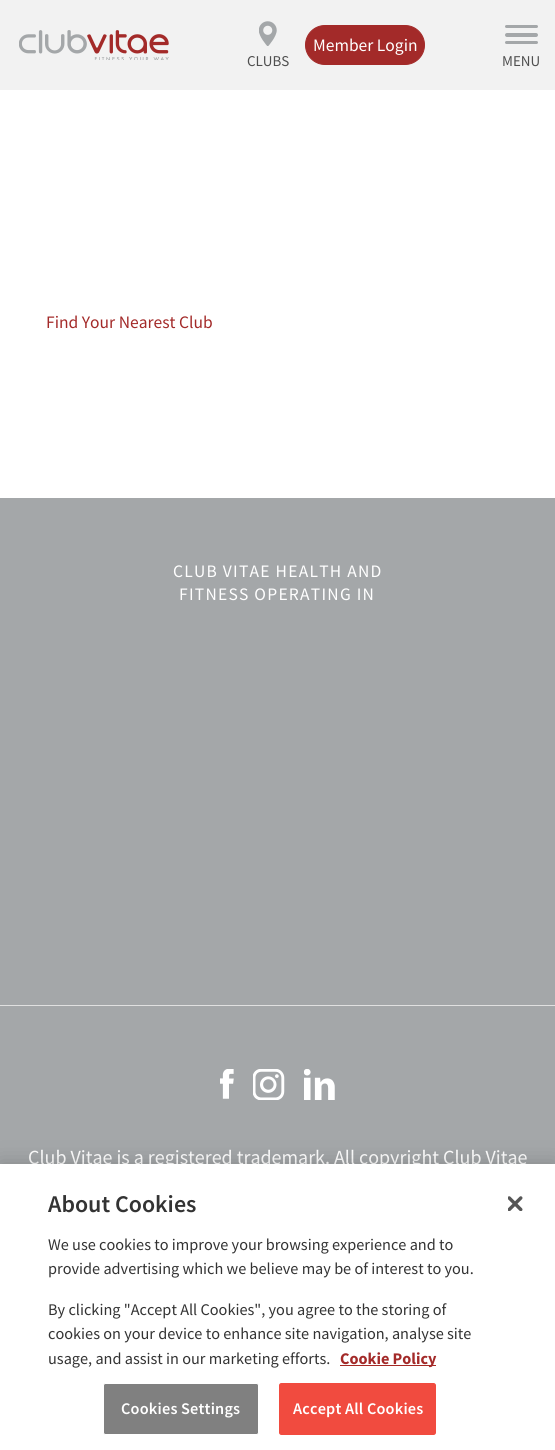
import math
import cairo

surface = cairo.ImageSurface(cairo.FORMAT_RGB24, 555, 1450)
c = cairo.Context(surface)
options = cairo.FontOptions()
options.set_hint_metrics(cairo.HINT_METRICS_OFF)
options.set_hint_style(cairo.HINT_STYLE_NONE)
c.set_font_options(options)
c.set_miter_limit(4)
def C(code):
 c.set_source_rgb(*(v / 255 for v in bytes.fromhex(code[-6:])))
def F(family, size, italic, bold):
 c.select_font_face(family, cairo.FONT_SLANT_ITALIC if italic else cairo.FONT_SLANT_NORMAL, cairo.FONT_WEIGHT_BOLD if bold else cairo.FONT_WEIGHT_NORMAL)
 c.set_font_size(size)
def T(x, y, s):
 c.move_to(x, y)
 c.show_text(s)
def L(x, y, s, letter, word):
 c.move_to(x, y)
 for ch in s:
  c.show_text(ch)
  c.rel_move_to(letter + word * (ch == ' '), 0)
def R(x, y, w, h):
 c.rectangle(x, y, w, h)
 c.fill()
def Q(x, y, w, h, r):
 c.new_sub_path()
 for i, (u, v) in enumerate([(x + w - r, y + h - r), (x + r, y + h - r), (x + r, y + r), (x + w - r, y + r)]):
  c.arc(u, v, r, i * math.pi / 2, (i + 1) * math.pi / 2)
 c.close_path()
def S(x, y, w, h, r, blur, alpha):
 c.push_group_with_content(cairo.CONTENT_ALPHA)
 c.set_operator(cairo.OPERATOR_SOURCE)
 for i in range(15, -16, -2):
  e = blur * i / 6
  if min(w, h) + 2 * e > 0:
   c.set_source_rgba(0, 0, 0, alpha * math.erfc((i - 1) / 8.5) / 2)
   Q(x - e, y - e, w + 2 * e, h + 2 * e, max(0, min(r + e + blur * .6, min(w, h) / 2 + e)))
   c.fill()
 c.mask(c.pop_group())
def I(path, x, y, w, h):
 c.save()
 c.set_source_surface(cairo.ImageSurface.create_from_png(path), x, y)
 c.rectangle(x, y, w, h)
 c.fill()
 c.restore()
C('ffffff')
c.paint()
C('f2f2f2')
R(0,0,555,90)
I('1.png',19,30,150,30)
C('a32a29')
Q(305.5,25.5,119,39,19.5)
c.fill_preserve()
c.set_line_width(1)
c.stroke()
F('Source Sans Pro',17.5,0,0)
C('ffffff')
T(313,51,'Member Login')
I('2.png',259,21,18,25)
F('Source Sans Pro',15,0,0)
C('4f4f4f')
T(247,66,'CLUBS')
C('a4a7a9')
Q(505,33,33,4,2)
c.fill()
Q(505,25,33,3,1.5)
c.fill()
Q(505,41,33,3,1.5)
c.fill()
C('4f4f4f')
T(502,66,'MENU')
F('Source Sans Pro',17.5,0,0)
C('a32a29')
T(46,328,'Find Your Nearest Club')
C('a4a7a9')
R(0,498,555,666)
C('ffffff')
L(173,577,'CLUB VITAE HEALTH AND',1.25,0)
L(179,600,'FITNESS OPERATING IN',1.25,0)
C('e0e0e0')
R(0,1005,555,1)
I('3.png',220,1069,14,30)
I('4.png',253,1069,32,31)
I('5.png',304,1069,31,31)
F('Source Sans Pro',20,0,0)
C('ffffff')
T(28,1164,'Club Vitae is a registered trademark. All copyright Club Vitae')
C('000000')
S(0,1164,555,286,0,11,.2)
C('ffffff')
R(0,1164,555,286)
F('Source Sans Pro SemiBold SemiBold',24,0,0)
C('333333')
T(48,1212,'About Cookies')
F('Source Sans Pro',16.25,0,0)
T(48,1250,'We use cookies to improve your browsing experience and to')
T(48,1274,'provide advertising which we believe may be of interest to you.')
T(48,1315,'By clicking "Accept All Cookies", you agree to the storing of')
T(48,1339,'cookies on your device to enhance site navigation, analyse site')
T(48,1364,'usage, and assist in our marketing efforts.')
C('a52924')
R(340,1365,96,1)
F('Source Sans Pro',16.25,0,1)
C('a32a29')
T(340,1364,'Cookie Policy')
C('808080')
Q(103.5,1383.5,155,51,2)
c.fill_preserve()
C('ffffff')
c.stroke()
F('Source Sans Pro SemiBold SemiBold',16.25,0,0)
L(121,1414,'Cookies Settings',.2,0)
C('f14b3f')
Q(279.5,1383.5,156,51,2)
c.fill_preserve()
c.stroke()
C('ffffff')
L(293,1414,'Accept All Cookies',.2,0)
I('6.png',508,1196,15,15)
surface.write_to_png('o.png')
